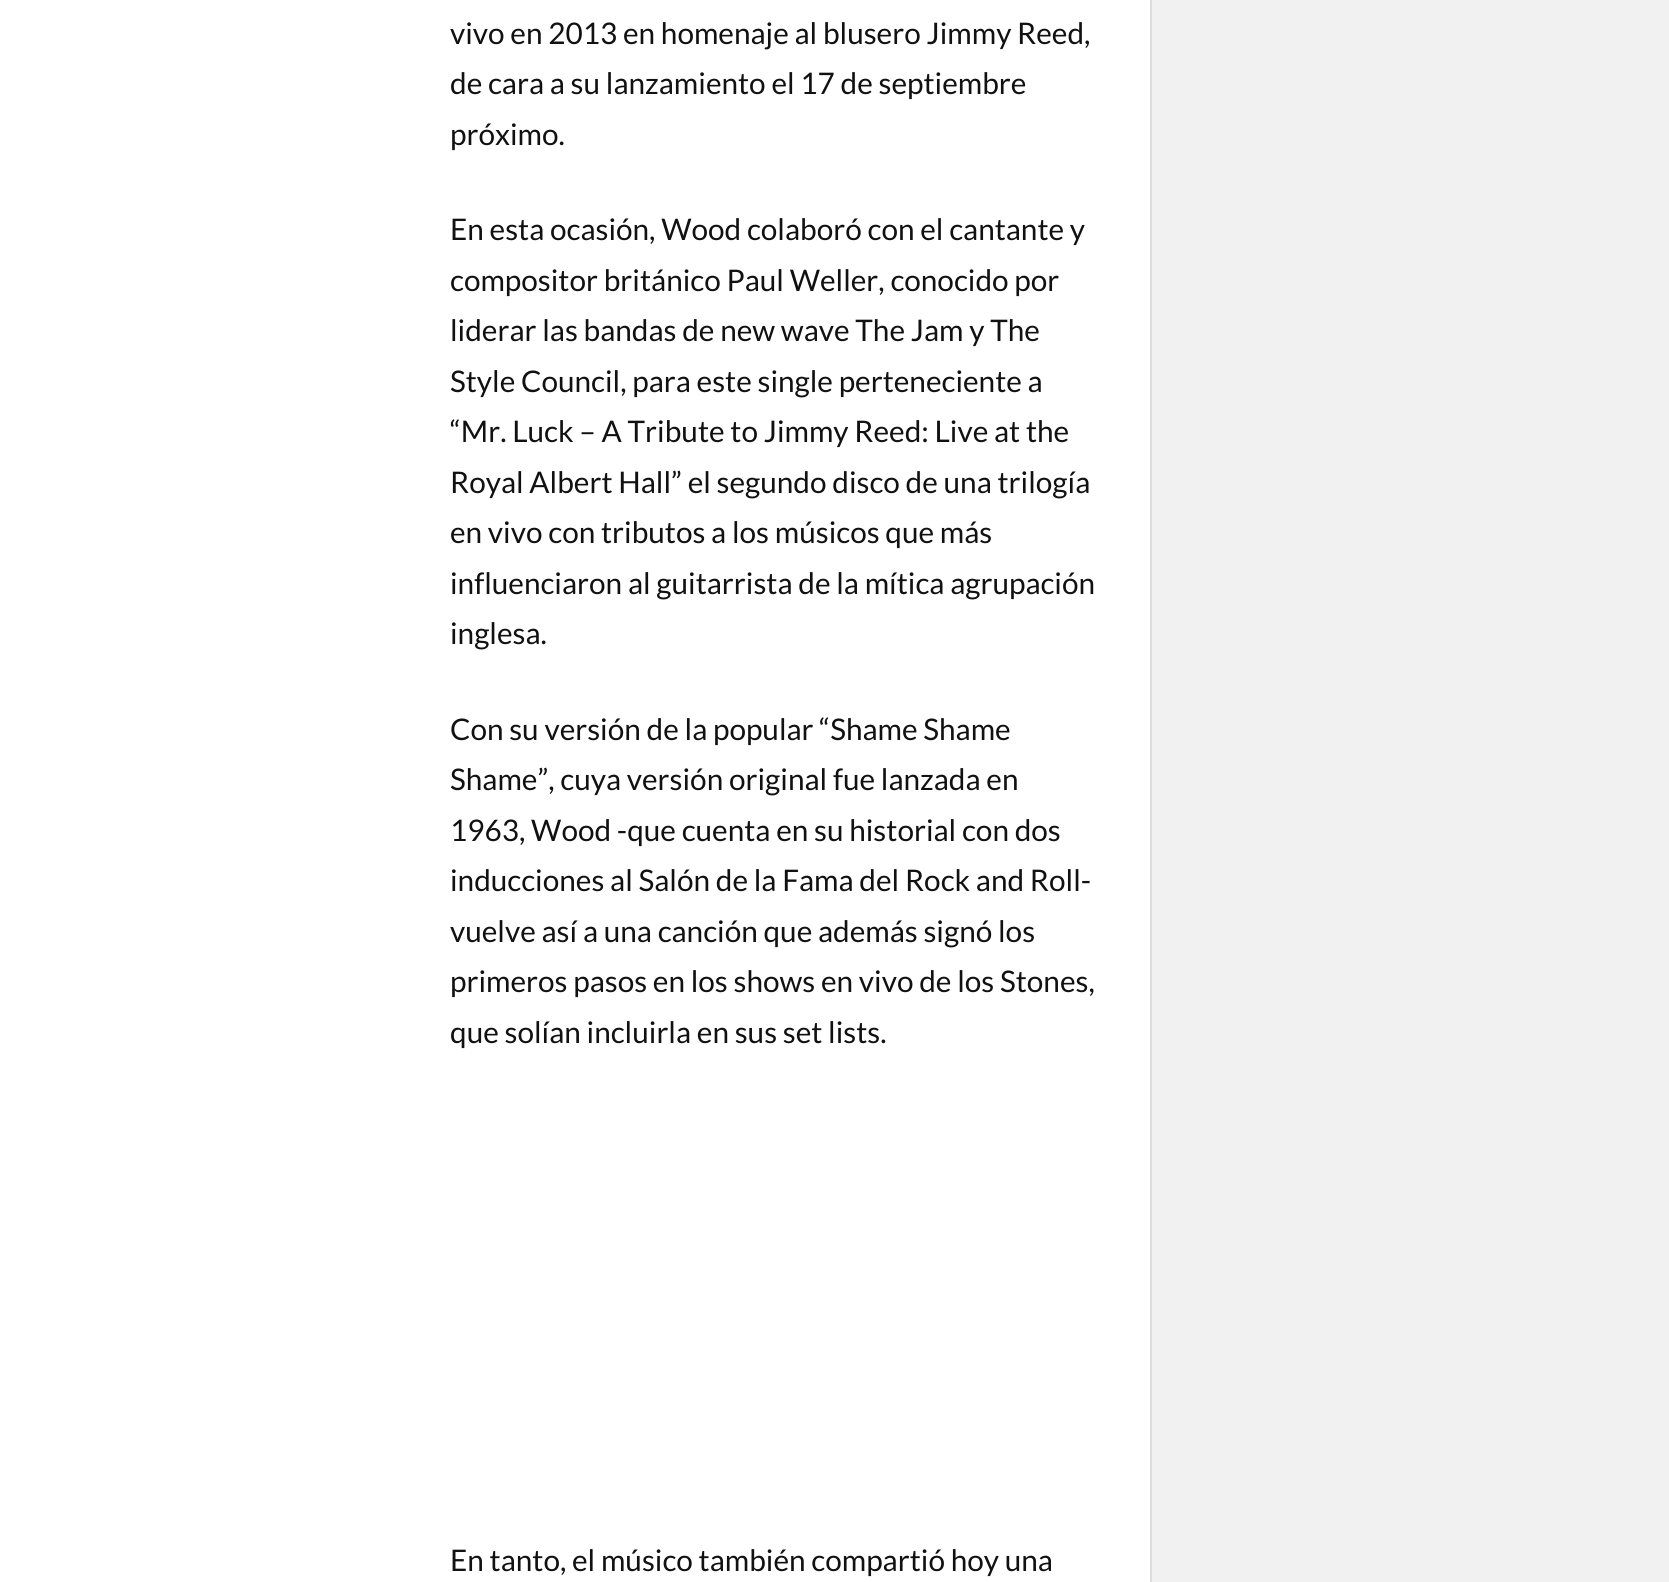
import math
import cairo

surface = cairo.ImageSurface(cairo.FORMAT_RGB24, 1669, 1582)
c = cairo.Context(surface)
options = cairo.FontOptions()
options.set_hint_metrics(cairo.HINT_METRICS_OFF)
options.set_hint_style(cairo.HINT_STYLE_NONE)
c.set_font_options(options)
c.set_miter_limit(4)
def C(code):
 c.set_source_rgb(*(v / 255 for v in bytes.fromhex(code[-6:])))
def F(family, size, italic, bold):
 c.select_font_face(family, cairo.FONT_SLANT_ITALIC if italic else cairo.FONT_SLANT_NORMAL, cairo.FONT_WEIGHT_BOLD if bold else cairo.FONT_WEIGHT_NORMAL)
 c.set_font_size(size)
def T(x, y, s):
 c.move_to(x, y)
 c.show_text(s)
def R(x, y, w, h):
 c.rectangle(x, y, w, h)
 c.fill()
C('f1f1f1')
c.paint()
C('ffffff')
R(0,0,1150,1582)
F('Lato',29.75,0,0)
C('111111')
T(450,44,'vivo en 2013 en homenaje al blusero Jimmy Reed,')
T(450,94,'de cara a su lanzamiento el 17 de septiembre')
T(450,145,'próximo.')
T(450,240,'En esta ocasión, Wood colaboró con el cantante y')
T(450,291,'compositor británico Paul Weller, conocido por')
T(450,341,'liderar las bandas de new wave The Jam y The')
T(450,392,'Style Council, para este single perteneciente a')
T(450,442,'“Mr. Luck – A Tribute to Jimmy Reed: Live at the')
T(450,493,'Royal Albert Hall” el segundo disco de una trilogía')
T(450,543,'en vivo con tributos a los músicos que más')
T(450,594,'influenciaron al guitarrista de la mítica agrupación')
T(450,644,'inglesa.')
T(450,740,'Con su versión de la popular “Shame Shame')
T(450,790,'Shame”, cuya versión original fue lanzada en')
T(450,841,'1963, Wood -que cuenta en su historial con dos')
T(450,891,'inducciones al Salón de la Fama del Rock and Roll-')
T(450,942,'vuelve así a una canción que además signó los')
T(450,992,'primeros pasos en los shows en vivo de los Stones,')
T(450,1043,'que solían incluirla en sus set lists.')
T(450,1571,'En tanto, el músico también compartió hoy una')
C('dddddd')
R(1150,0,2,1582)
surface.write_to_png('o.png')
